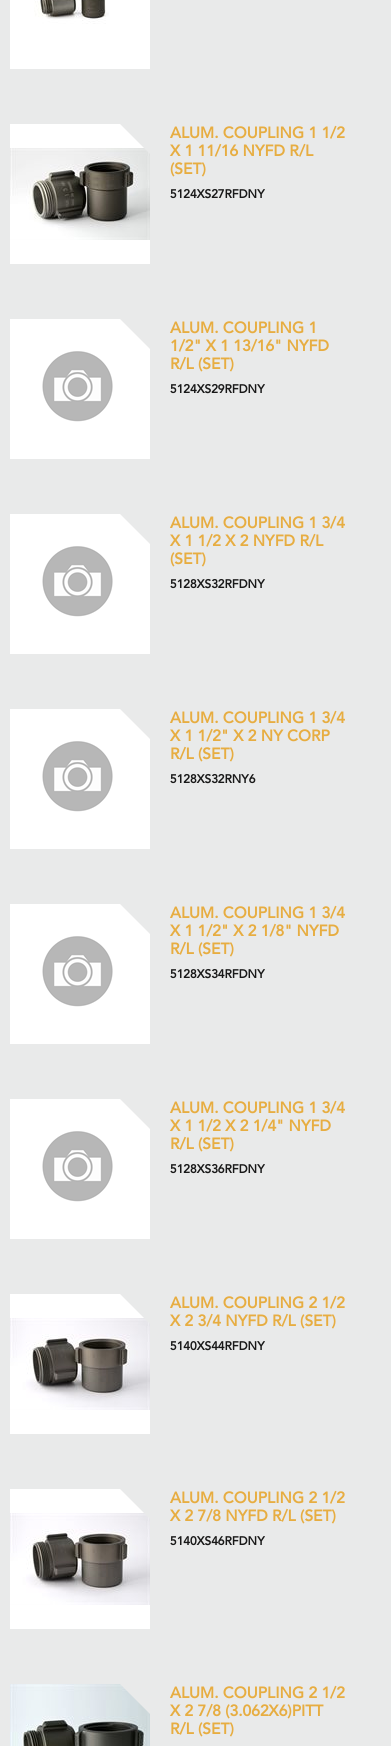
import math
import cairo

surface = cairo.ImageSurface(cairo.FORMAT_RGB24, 391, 1746)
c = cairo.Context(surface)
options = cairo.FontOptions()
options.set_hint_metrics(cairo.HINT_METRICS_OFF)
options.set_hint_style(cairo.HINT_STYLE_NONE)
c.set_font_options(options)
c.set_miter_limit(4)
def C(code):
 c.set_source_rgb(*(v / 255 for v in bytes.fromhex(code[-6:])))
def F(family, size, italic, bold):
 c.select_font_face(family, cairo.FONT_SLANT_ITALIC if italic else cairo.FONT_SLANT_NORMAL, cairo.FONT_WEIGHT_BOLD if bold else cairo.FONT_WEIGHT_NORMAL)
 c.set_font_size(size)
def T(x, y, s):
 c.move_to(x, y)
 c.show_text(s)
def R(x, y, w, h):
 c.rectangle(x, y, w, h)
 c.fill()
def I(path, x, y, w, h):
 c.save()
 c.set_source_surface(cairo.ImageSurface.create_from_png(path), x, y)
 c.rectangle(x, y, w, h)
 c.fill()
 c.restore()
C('e9eaea')
c.paint()
C('ffffff')
R(10,0,140,69)
I('1.png',34,0,75,24)
R(10,124,140,140)
I('2.png',10,148,140,92)
C('e9eaea')
c.new_path()
c.move_to(120,124)
c.line_to(150,124)
c.line_to(150,154)
c.close_path()
c.fill()
F('Avenir',15.6,0,1)
C('e7ad41')
T(170,138,'ALUM. COUPLING 1 1/2')
T(170,156,'X 1 11/16 NYFD R/L')
T(170,174,'(SET)')
F('Avenir',12,0,1)
C('191919')
T(170,198,'5124XS27RFDNY')
C('ffffff')
R(10,319,140,140)
C('e9eaea')
c.new_path()
c.move_to(120,319)
c.line_to(150,319)
c.line_to(150,349)
c.close_path()
c.fill()
I('3.png',42,351,71,71)
F('Avenir',15.6,0,1)
C('e7ad41')
T(170,333,'ALUM. COUPLING 1')
T(170,351,'1/2" X 1 13/16" NYFD')
T(170,369,'R/L (SET)')
F('Avenir',12,0,1)
C('191919')
T(170,393,'5124XS29RFDNY')
C('ffffff')
R(10,514,140,140)
C('e9eaea')
c.new_path()
c.move_to(120,514)
c.line_to(150,514)
c.line_to(150,544)
c.close_path()
c.fill()
I('3.png',42,546,71,71)
F('Avenir',15.6,0,1)
C('e7ad41')
T(170,528,'ALUM. COUPLING 1 3/4')
T(170,546,'X 1 1/2 X 2 NYFD R/L')
T(170,564,'(SET)')
F('Avenir',12,0,1)
C('191919')
T(170,588,'5128XS32RFDNY')
C('ffffff')
R(10,709,140,140)
C('e9eaea')
c.new_path()
c.move_to(120,709)
c.line_to(150,709)
c.line_to(150,739)
c.close_path()
c.fill()
I('3.png',42,741,71,71)
F('Avenir',15.6,0,1)
C('e7ad41')
T(170,723,'ALUM. COUPLING 1 3/4')
T(170,741,'X 1 1/2" X 2 NY CORP')
T(170,759,'R/L (SET)')
F('Avenir',12,0,1)
C('191919')
T(170,783,'5128XS32RNY6')
C('ffffff')
R(10,904,140,140)
C('e9eaea')
c.new_path()
c.move_to(120,904)
c.line_to(150,904)
c.line_to(150,934)
c.close_path()
c.fill()
I('3.png',42,936,71,71)
F('Avenir',15.6,0,1)
C('e7ad41')
T(170,918,'ALUM. COUPLING 1 3/4')
T(170,936,'X 1 1/2" X 2 1/8" NYFD')
T(170,954,'R/L (SET)')
F('Avenir',12,0,1)
C('191919')
T(170,978,'5128XS34RFDNY')
C('ffffff')
R(10,1099,140,140)
C('e9eaea')
c.new_path()
c.move_to(120,1099)
c.line_to(150,1099)
c.line_to(150,1129)
c.close_path()
c.fill()
I('3.png',42,1131,71,71)
F('Avenir',15.6,0,1)
C('e7ad41')
T(170,1113,'ALUM. COUPLING 1 3/4')
T(170,1131,'X 1 1/2 X 2 1/4" NYFD')
T(170,1149,'R/L (SET)')
F('Avenir',12,0,1)
C('191919')
T(170,1173,'5128XS36RFDNY')
C('ffffff')
R(10,1294,140,140)
I('4.png',10,1318,140,92)
C('e9eaea')
c.new_path()
c.move_to(120,1294)
c.line_to(150,1294)
c.line_to(150,1324)
c.close_path()
c.fill()
F('Avenir',15.6,0,1)
C('e7ad41')
T(170,1308,'ALUM. COUPLING 2 1/2')
T(170,1326,'X 2 3/4 NYFD R/L (SET)')
F('Avenir',12,0,1)
C('191919')
T(170,1350,'5140XS44RFDNY')
C('ffffff')
R(10,1489,140,140)
I('4.png',10,1513,140,92)
C('e9eaea')
c.new_path()
c.move_to(120,1489)
c.line_to(150,1489)
c.line_to(150,1519)
c.close_path()
c.fill()
F('Avenir',15.6,0,1)
C('e7ad41')
T(170,1503,'ALUM. COUPLING 2 1/2')
T(170,1521,'X 2 7/8 NYFD R/L (SET)')
F('Avenir',12,0,1)
C('191919')
T(170,1545,'5140XS46RFDNY')
I('5.png',10,1684,140,62)
C('e9eaea')
c.new_path()
c.move_to(120,1684)
c.line_to(150,1684)
c.line_to(150,1714)
c.close_path()
c.fill()
F('Avenir',15.6,0,1)
C('e7ad41')
T(170,1698,'ALUM. COUPLING 2 1/2')
T(170,1716,'X 2 7/8 (3.062X6)PITT')
T(170,1734,'R/L (SET)')
surface.write_to_png('o.png')
